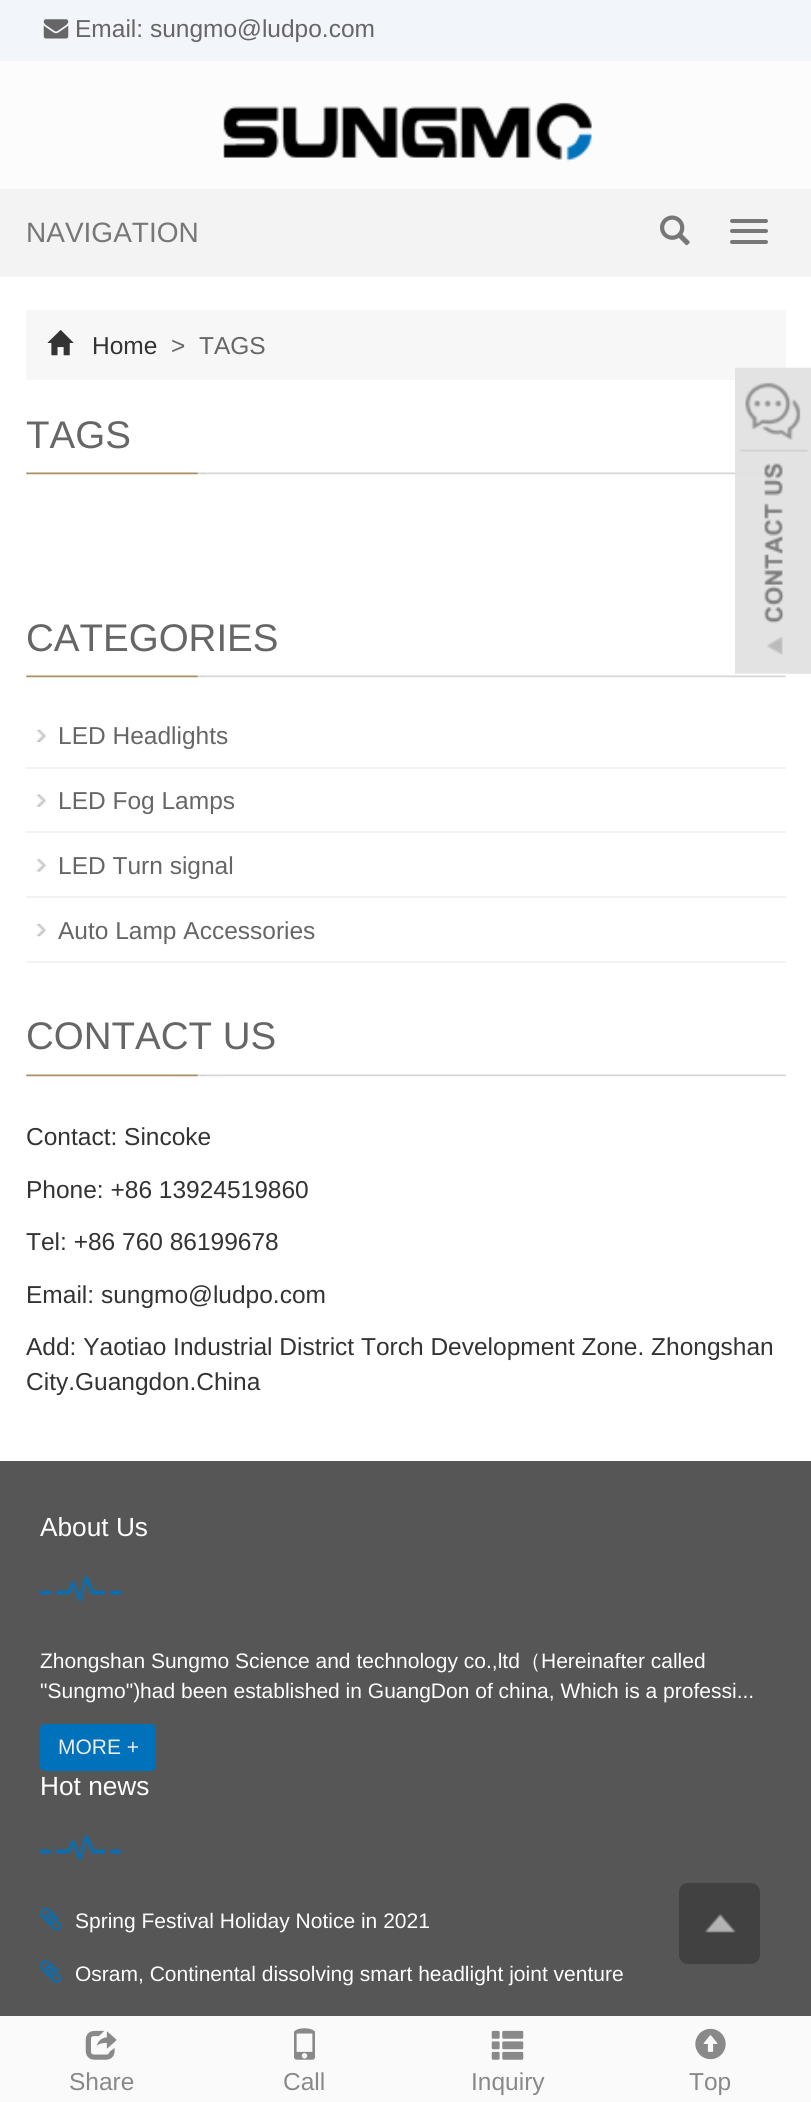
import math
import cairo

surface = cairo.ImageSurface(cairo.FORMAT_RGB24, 811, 2102)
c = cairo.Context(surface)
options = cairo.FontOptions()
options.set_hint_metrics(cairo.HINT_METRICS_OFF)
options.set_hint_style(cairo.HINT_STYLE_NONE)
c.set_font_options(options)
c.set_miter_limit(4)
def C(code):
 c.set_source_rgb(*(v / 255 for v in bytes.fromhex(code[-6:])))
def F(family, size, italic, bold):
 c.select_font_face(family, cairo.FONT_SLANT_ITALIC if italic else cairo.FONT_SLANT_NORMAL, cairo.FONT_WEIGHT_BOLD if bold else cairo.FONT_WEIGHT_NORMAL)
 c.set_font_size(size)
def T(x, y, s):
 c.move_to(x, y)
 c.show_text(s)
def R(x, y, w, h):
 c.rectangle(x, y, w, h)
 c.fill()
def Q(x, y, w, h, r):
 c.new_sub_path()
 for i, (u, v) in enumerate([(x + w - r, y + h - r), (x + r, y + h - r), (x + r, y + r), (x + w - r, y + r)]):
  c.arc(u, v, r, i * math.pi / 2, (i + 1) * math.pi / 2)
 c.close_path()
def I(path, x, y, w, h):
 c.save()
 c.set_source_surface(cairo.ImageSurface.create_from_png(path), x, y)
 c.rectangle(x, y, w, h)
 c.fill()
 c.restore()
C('ffffff')
c.paint()
C('fcfcfd')
R(0,61,811,128)
C('f2f5f9')
R(0,0,811,61)
I('1.png',43,19,26,20)
F('Liberation Sans',24.5,0,0)
C('666666')
T(75,37,'Email: sungmo@ludpo.com')
I('2.png',223,102,369,60)
C('f3f3f3')
R(0,189,811,88)
F('Liberation Sans',28,0,0)
C('777777')
T(26,242,'NAVIGATION')
I('3.png',660,215,30,31)
Q(730,219,38,4,2)
c.fill()
Q(730,229,38,4,2)
c.fill()
Q(730,240,38,4,2)
c.fill()
C('f7f7f7')
R(26,310,760,70)
I('4.png',47,330,27,26)
F('Liberation Sans',24.5,0,0)
C('333333')
T(92,354,'Home')
C('666666')
T(171,354,'>  TAGS')
I('5.png',26,472,760,3)
F('Liberation Sans',38.5,0,0)
T(26,448,'TAGS')
I('5.png',26,675,760,3)
T(26,651,'CATEGORIES')
I('6.png',36,729,10,13)
C('f2f2f2')
R(26,767,760,2)
F('Liberation Sans',24.5,0,0)
C('666666')
T(58,744,'LED Headlights')
I('7.png',36,794,10,13)
C('f2f2f2')
R(26,831,760,2)
C('666666')
T(58,809,'LED Fog Lamps')
I('8.png',36,859,10,13)
C('f2f2f2')
R(26,896,760,2)
C('666666')
T(58,874,'LED Turn signal')
I('9.png',36,924,10,13)
C('f2f2f2')
R(26,961,760,2)
C('666666')
T(58,939,'Auto Lamp Accessories')
I('5.png',26,1074,760,3)
F('Liberation Sans',38.5,0,0)
T(26,1049,'CONTACT US')
F('Liberation Sans',24.5,0,0)
C('333333')
T(26,1145,'Contact: Sincoke')
T(26,1198,'Phone: +86 13924519860')
T(26,1250,'Tel: +86 760 86199678')
T(26,1303,'Email: sungmo@ludpo.com')
T(26,1355,'Add: Yaotiao Industrial District Torch Development Zone. Zhongshan')
T(26,1390,'City.Guangdon.China')
I('10.png',735,367,76,307)
C('565656')
R(0,1461,811,555)
F('Liberation Sans',26.25,0,0)
C('ffffff')
T(40,1536,'About Us')
I('11.png',40,1575,81,27)
F('Liberation Sans',21,0,0)
T(40,1668,'Zhongshan Sungmo Science and technology co.,ltd')
F('WenQuanYi Zen Hei Medium',21,0,0)
T(520,1668,'（')
F('Liberation Sans',21,0,0)
T(541,1668,'Hereinafter called')
T(40,1698,'"Sungmo")had been established in GuangDon of china, Which is a professi...')
C('0072bc')
Q(40,1724,116,47,5)
c.fill()
C('ececec')
T(58,1754,'MORE +')
F('Liberation Sans',26.25,0,0)
C('ffffff')
T(40,1795,'Hot news')
I('11.png',40,1834,81,27)
I('12.png',40,1908,21,23)
F('Liberation Sans',21,0,0)
T(75,1928,'Spring Festival Holiday Notice in 2021')
I('13.png',40,1960,21,23)
T(75,1981,'Osram, Continental dissolving smart headlight joint venture')
C('414141')
Q(679,1883,81,81,9)
c.fill()
I('14.png',705,1914,31,19)
C('fafafa')
R(0,2016,811,86)
I('15.png',85,2030,32,30)
F('Liberation Sans',24.5,0,0)
C('898989')
T(69,2090,'Share')
I('16.png',294,2028,21,32)
T(283,2090,'Call')
I('17.png',491,2030,33,30)
T(471,2090,'Inquiry')
I('18.png',695,2028,31,32)
T(689,2090,'Top')
surface.write_to_png('o.png')
